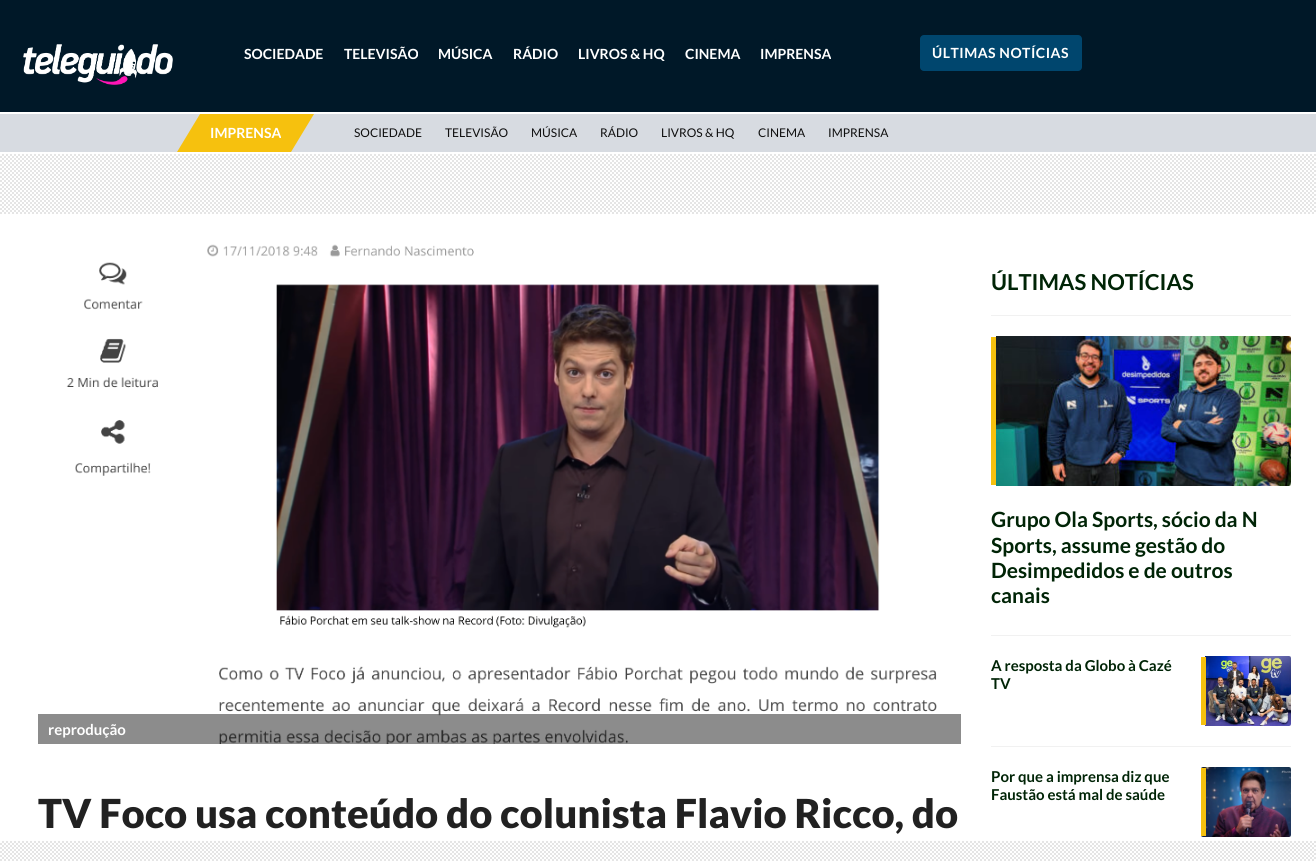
import math
import cairo

surface = cairo.ImageSurface(cairo.FORMAT_RGB24, 1316, 861)
c = cairo.Context(surface)
options = cairo.FontOptions()
options.set_hint_metrics(cairo.HINT_METRICS_OFF)
options.set_hint_style(cairo.HINT_STYLE_NONE)
c.set_font_options(options)
c.set_miter_limit(4)
def C(code):
 c.set_source_rgb(*(v / 255 for v in bytes.fromhex(code[-6:])))
def F(family, size, italic, bold):
 c.select_font_face(family, cairo.FONT_SLANT_ITALIC if italic else cairo.FONT_SLANT_NORMAL, cairo.FONT_WEIGHT_BOLD if bold else cairo.FONT_WEIGHT_NORMAL)
 c.set_font_size(size)
def T(x, y, s):
 c.move_to(x, y)
 c.show_text(s)
def L(x, y, s, letter, word):
 c.move_to(x, y)
 for ch in s:
  c.show_text(ch)
  c.rel_move_to(letter + word * (ch == ' '), 0)
def R(x, y, w, h):
 c.rectangle(x, y, w, h)
 c.fill()
def Q(x, y, w, h, r):
 c.new_sub_path()
 for i, (u, v) in enumerate([(x + w - r, y + h - r), (x + r, y + h - r), (x + r, y + r), (x + w - r, y + r)]):
  c.arc(u, v, r, i * math.pi / 2, (i + 1) * math.pi / 2)
 c.close_path()
def I(path, x, y, w, h):
 c.save()
 c.set_source_surface(cairo.ImageSurface.create_from_png(path), x, y)
 c.rectangle(x, y, w, h)
 c.fill()
 c.restore()
C('ffffff')
c.paint()
C('001828')
R(0,0,1316,112)
I('1.png',23,44,150,41)
F('Lato',14,0,1)
C('ffffff')
T(244,59,'SOCIEDADE')
T(344,59,'TELEVISÃO')
T(438,59,'MÚSICA')
T(513,59,'RÁDIO')
T(578,59,'LIVROS & HQ')
T(685,59,'CINEMA')
T(760,59,'IMPRENSA')
C('00466e')
Q(920,35,162,36,4)
c.fill()
C('ffffff')
L(932,58,'ÚLTIMAS NOTÍCIAS',.5,0)
C('d7dbe1')
R(0,114,1316,38)
C('f6c10e')
c.new_path()
c.move_to(200,152)
c.line_to(177,152)
c.line_to(200,114)
c.close_path()
c.fill()
R(200,114,91,38)
C('ffffff')
T(210,138,'IMPRENSA')
C('f6c10e')
c.new_path()
c.move_to(291,114)
c.line_to(314,114)
c.line_to(291,152)
c.close_path()
c.fill()
F('Lato',12,0,0)
C('0f0f0f')
T(354,137,'SOCIEDADE')
T(445,137,'TELEVISÃO')
T(531,137,'MÚSICA')
T(600,137,'RÁDIO')
T(661,137,'LIVROS & HQ')
T(758,137,'CINEMA')
T(828,137,'IMPRENSA')
I('2.png',0,154,1316,60)
I('3.png',66,244,871,500)
c.set_source_rgba(0,0,0,0.45)
R(38,714,923,30)
F('Lato',15,0,1)
C('ffffff')
T(48,735,'reprodução')
F('Lato Black',40,0,0)
C('212121')
T(38,828,'TV Foco usa conteúdo do colunista Flavio Ricco, do')
F('Lato',22,0,1)
C('002406')
T(991,290,'ÚLTIMAS NOTÍCIAS')
C('f1f1f1')
R(991,315,300,1)
I('4.png',996,336,295,150)
C('f6c10e')
R(991,337,5,148)
F('Lato',21,0,1)
C('002406')
T(991,527,'Grupo Ola Sports, sócio da N')
T(991,553,'Sports, assume gestão do')
T(991,578,'Desimpedidos e de outros')
T(991,603,'canais')
C('f1f1f1')
R(991,635,300,1)
F('Lato',15,0,1)
C('002406')
T(991,671,'A resposta da Globo à Cazé')
T(991,689,'TV')
I('5.png',1205,656,86,70)
C('f6c10e')
R(1201,657,5,68)
C('f1f1f1')
R(991,746,300,1)
C('002406')
T(991,782,'Por que a imprensa diz que')
T(991,800,'Faustão está mal de saúde')
I('6.png',1201,767,90,70)
C('f6c10e')
R(1201,768,5,68)
I('7.png',0,841,1316,20)
surface.write_to_png('o.png')
